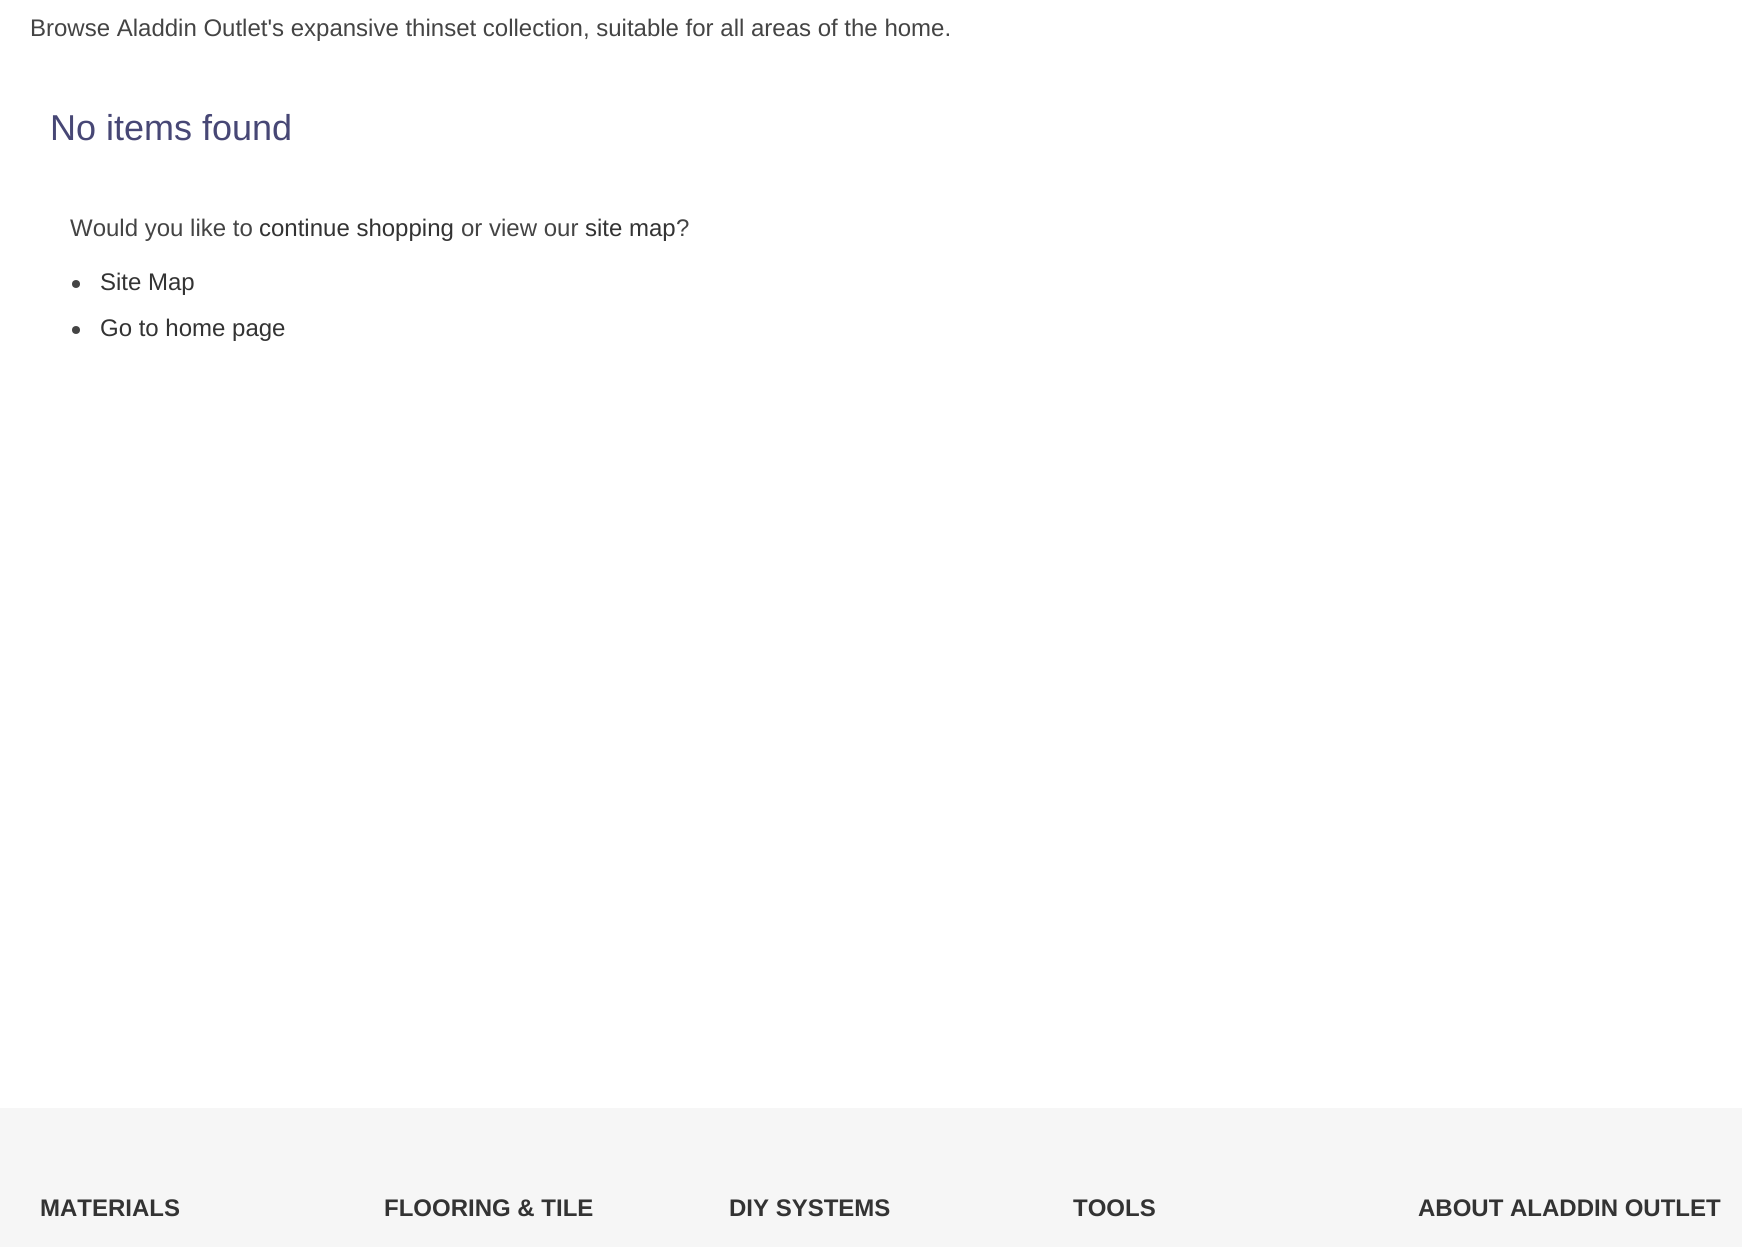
import math
import cairo

surface = cairo.ImageSurface(cairo.FORMAT_RGB24, 1742, 1247)
c = cairo.Context(surface)
options = cairo.FontOptions()
options.set_hint_metrics(cairo.HINT_METRICS_OFF)
options.set_hint_style(cairo.HINT_STYLE_NONE)
c.set_font_options(options)
c.set_miter_limit(4)
def C(code):
 c.set_source_rgb(*(v / 255 for v in bytes.fromhex(code[-6:])))
def F(family, size, italic, bold):
 c.select_font_face(family, cairo.FONT_SLANT_ITALIC if italic else cairo.FONT_SLANT_NORMAL, cairo.FONT_WEIGHT_BOLD if bold else cairo.FONT_WEIGHT_NORMAL)
 c.set_font_size(size)
def T(x, y, s):
 c.move_to(x, y)
 c.show_text(s)
def R(x, y, w, h):
 c.rectangle(x, y, w, h)
 c.fill()
C('ffffff')
c.paint()
F('Liberation Sans',24,0,0)
C('444444')
T(30,36,'Browse Aladdin Outlet\'s expansive thinset collection, suitable for all areas of the home.')
F('Liberation Sans',36,0,0)
C('474775')
T(50,140,'No items found')
F('Liberation Sans',24,0,0)
C('444444')
T(70,236,'Would you like to')
C('333333')
T(259,236,'continue shopping')
C('444444')
T(461,236,'or view our')
C('333333')
T(585,236,'site map')
C('444444')
T(676,236,'?')
c.new_path()
c.arc(76,284,4,0,2 * math.pi)
c.fill()
C('333333')
T(100,290,'Site Map')
C('444444')
c.new_path()
c.arc(76,330,4,0,2 * math.pi)
c.fill()
C('333333')
T(100,336,'Go to home page')
C('f6f6f6')
R(0,1108,1742,139)
F('Liberation Sans',24,0,1)
C('333333')
T(40,1216,'MATERIALS')
T(384,1216,'FLOORING & TILE')
T(729,1216,'DIY SYSTEMS')
T(1073,1216,'TOOLS')
T(1418,1216,'ABOUT ALADDIN OUTLET')
surface.write_to_png('o.png')
